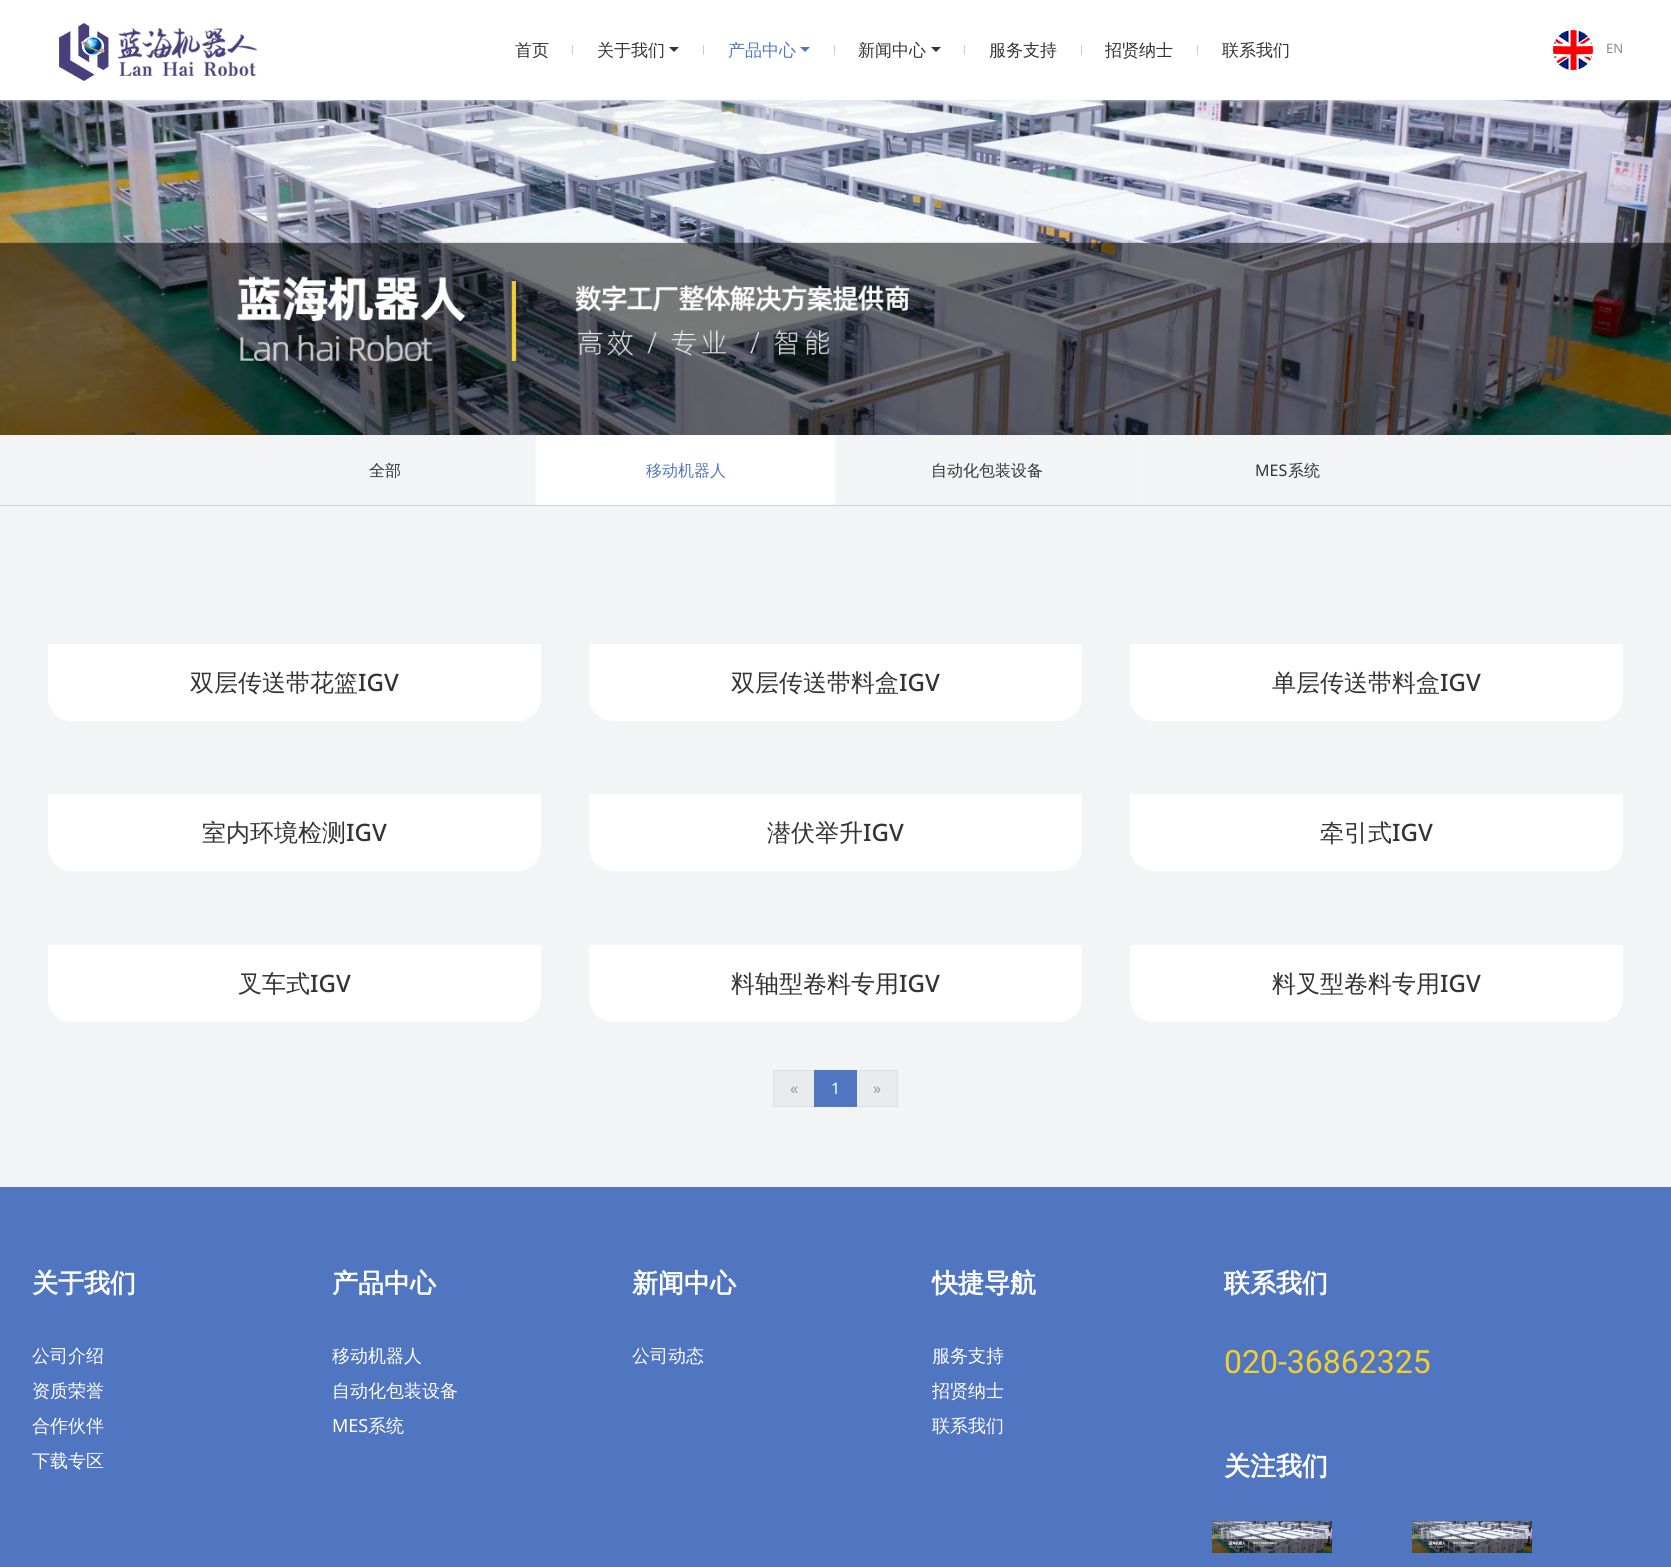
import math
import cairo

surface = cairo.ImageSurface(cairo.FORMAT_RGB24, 1671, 1567)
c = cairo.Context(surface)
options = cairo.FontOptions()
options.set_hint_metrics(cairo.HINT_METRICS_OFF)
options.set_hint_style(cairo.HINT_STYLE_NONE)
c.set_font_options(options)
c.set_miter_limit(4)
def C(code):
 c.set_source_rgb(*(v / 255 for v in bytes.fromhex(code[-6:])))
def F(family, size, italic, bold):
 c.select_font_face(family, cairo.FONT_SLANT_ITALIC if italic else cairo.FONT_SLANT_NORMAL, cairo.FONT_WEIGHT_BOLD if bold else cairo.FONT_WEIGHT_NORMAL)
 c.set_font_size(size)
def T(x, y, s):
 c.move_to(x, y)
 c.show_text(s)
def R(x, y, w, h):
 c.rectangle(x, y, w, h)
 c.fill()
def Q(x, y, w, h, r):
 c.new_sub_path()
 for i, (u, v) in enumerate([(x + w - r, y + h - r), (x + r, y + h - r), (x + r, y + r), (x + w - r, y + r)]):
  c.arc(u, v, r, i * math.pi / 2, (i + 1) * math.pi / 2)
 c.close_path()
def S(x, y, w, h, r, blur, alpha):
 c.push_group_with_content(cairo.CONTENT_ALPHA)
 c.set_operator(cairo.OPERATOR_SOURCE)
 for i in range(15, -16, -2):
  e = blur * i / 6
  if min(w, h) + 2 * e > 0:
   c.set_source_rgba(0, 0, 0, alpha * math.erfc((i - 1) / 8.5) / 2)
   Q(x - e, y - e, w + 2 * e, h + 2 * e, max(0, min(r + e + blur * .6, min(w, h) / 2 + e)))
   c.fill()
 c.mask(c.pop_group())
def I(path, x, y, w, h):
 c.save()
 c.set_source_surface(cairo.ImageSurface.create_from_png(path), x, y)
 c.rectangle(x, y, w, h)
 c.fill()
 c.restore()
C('f3f4f6')
c.paint()
I('3.png',0,100,1671,335)
C('eeeeee')
S(0,0,1671,100,0,2,1)
C('ffffff')
R(0,0,1671,100)
I('1.png',59,23,198,58)
F('WenQuanYi Zen Hei Medium',17,0,0)
C('333333')
T(515,56,'首页')
C('cccccc')
R(572,45,1,10)
C('333333')
T(597,56,'关于我们')
c.new_path()
c.move_to(669,47)
c.line_to(679,47)
c.line_to(674,52)
c.close_path()
c.fill()
C('cccccc')
R(703,45,1,10)
C('5075c1')
T(728,56,'产品中心')
c.new_path()
c.move_to(800,47)
c.line_to(810,47)
c.line_to(805,52)
c.close_path()
c.fill()
C('cccccc')
R(834,45,1,10)
C('333333')
T(858,56,'新闻中心')
c.new_path()
c.move_to(931,47)
c.line_to(941,47)
c.line_to(936,52)
c.close_path()
c.fill()
C('cccccc')
R(964,45,1,10)
C('333333')
T(989,56,'服务支持')
C('cccccc')
R(1081,45,1,10)
C('333333')
T(1105,56,'招贤纳士')
C('cccccc')
R(1197,45,1,10)
C('333333')
T(1222,56,'联系我们')
I('2.png',1553,30,40,40)
F('Noto Sans',13,0,0)
C('888888')
T(1606,53,'EN')
C('ccd5db')
R(0,505,1671,1)
C('f3f7f9')
R(234,435,1,70)
F('WenQuanYi Zen Hei Medium',16,0,0)
C('333333')
T(369,476,'全部')
C('ffffff')
R(536,435,299,70)
C('f3f7f9')
R(535,435,1,70)
C('5075c1')
T(646,476,'移动机器人')
C('f3f7f9')
R(836,435,1,70)
C('333333')
T(931,476,'自动化包装设备')
C('f3f7f9')
R(1137,435,1,70)
F('Noto Sans',16,0,0)
C('333333')
T(1255,476,'MES')
F('WenQuanYi Zen Hei Medium',16,0,0)
T(1288,476,'系统')
C('ffffff')
c.new_path()
c.move_to(48,644)
c.line_to(541,644)
c.line_to(541,697)
c.curve_to(541,710.5,530.5,721,517,721)
c.line_to(72,721)
c.curve_to(58.5,721,48,710.5,48,697)
c.close_path()
c.fill()
F('WenQuanYi Zen Hei Medium',24,0,0)
C('333333')
T(190,691,'双层传送带花篮')
F('Noto Sans Medium',24,0,0)
T(358,691,'IGV')
C('ffffff')
c.new_path()
c.move_to(589,644)
c.line_to(1082,644)
c.line_to(1082,697)
c.curve_to(1082,710.5,1071.5,721,1058,721)
c.line_to(613,721)
c.curve_to(599.5,721,589,710.5,589,697)
c.close_path()
c.fill()
F('WenQuanYi Zen Hei Medium',24,0,0)
C('333333')
T(731,691,'双层传送带料盒')
F('Noto Sans Medium',24,0,0)
T(899,691,'IGV')
C('ffffff')
c.new_path()
c.move_to(1130,644)
c.line_to(1623,644)
c.line_to(1623,697)
c.curve_to(1623,710.5,1612.5,721,1599,721)
c.line_to(1154,721)
c.curve_to(1140.5,721,1130,710.5,1130,697)
c.close_path()
c.fill()
F('WenQuanYi Zen Hei Medium',24,0,0)
C('333333')
T(1272,691,'单层传送带料盒')
F('Noto Sans Medium',24,0,0)
T(1440,691,'IGV')
C('ffffff')
c.new_path()
c.move_to(48,794)
c.line_to(541,794)
c.line_to(541,847)
c.curve_to(541,860.5,530.5,871,517,871)
c.line_to(72,871)
c.curve_to(58.5,871,48,860.5,48,847)
c.close_path()
c.fill()
F('WenQuanYi Zen Hei Medium',24,0,0)
C('333333')
T(202,841,'室内环境检测')
F('Noto Sans Medium',24,0,0)
T(346,841,'IGV')
C('ffffff')
c.new_path()
c.move_to(589,794)
c.line_to(1082,794)
c.line_to(1082,847)
c.curve_to(1082,860.5,1071.5,871,1058,871)
c.line_to(613,871)
c.curve_to(599.5,871,589,860.5,589,847)
c.close_path()
c.fill()
F('WenQuanYi Zen Hei Medium',24,0,0)
C('333333')
T(767,841,'潜伏举升')
F('Noto Sans Medium',24,0,0)
T(863,841,'IGV')
C('ffffff')
c.new_path()
c.move_to(1130,794)
c.line_to(1623,794)
c.line_to(1623,847)
c.curve_to(1623,860.5,1612.5,871,1599,871)
c.line_to(1154,871)
c.curve_to(1140.5,871,1130,860.5,1130,847)
c.close_path()
c.fill()
F('WenQuanYi Zen Hei Medium',24,0,0)
C('333333')
T(1320,841,'牵引式')
F('Noto Sans Medium',24,0,0)
T(1392,841,'IGV')
C('ffffff')
c.new_path()
c.move_to(48,945)
c.line_to(541,945)
c.line_to(541,998)
c.curve_to(541,1011.5,530.5,1022,517,1022)
c.line_to(72,1022)
c.curve_to(58.5,1022,48,1011.5,48,998)
c.close_path()
c.fill()
F('WenQuanYi Zen Hei Medium',24,0,0)
C('333333')
T(238,992,'叉车式')
F('Noto Sans Medium',24,0,0)
T(310,992,'IGV')
C('ffffff')
c.new_path()
c.move_to(589,945)
c.line_to(1082,945)
c.line_to(1082,998)
c.curve_to(1082,1011.5,1071.5,1022,1058,1022)
c.line_to(613,1022)
c.curve_to(599.5,1022,589,1011.5,589,998)
c.close_path()
c.fill()
F('WenQuanYi Zen Hei Medium',24,0,0)
C('333333')
T(731,992,'料轴型卷料专用')
F('Noto Sans Medium',24,0,0)
T(899,992,'IGV')
C('ffffff')
c.new_path()
c.move_to(1130,945)
c.line_to(1623,945)
c.line_to(1623,998)
c.curve_to(1623,1011.5,1612.5,1022,1599,1022)
c.line_to(1154,1022)
c.curve_to(1140.5,1022,1130,1011.5,1130,998)
c.close_path()
c.fill()
F('WenQuanYi Zen Hei Medium',24,0,0)
C('333333')
T(1272,992,'料叉型卷料专用')
F('Noto Sans Medium',24,0,0)
T(1440,992,'IGV')
C('e9ecef')
c.rectangle(773.5,1070.5,41,36)
c.fill_preserve()
C('dee2e6')
c.set_line_width(1)
c.stroke()
F('Noto Sans',16,0,0)
C('999999')
T(790,1094,'«')
C('e9ecef')
c.rectangle(856.5,1070.5,41,36)
c.fill_preserve()
C('dee2e6')
c.stroke()
C('5075c1')
R(814,1070,43,37)
C('ffffff')
T(831,1094,'1')
C('999999')
T(873,1094,'»')
C('5075c1')
R(0,1187,1671,380)
F('WenQuanYi Zen Hei',26,0,1)
C('ffffff')
T(32,1292,'关于我们')
F('WenQuanYi Zen Hei Medium',18,0,0)
T(32,1362,'公司介绍')
T(32,1397,'资质荣誉')
T(32,1432,'合作伙伴')
T(32,1467,'下载专区')
F('WenQuanYi Zen Hei',26,0,1)
T(332,1292,'产品中心')
F('WenQuanYi Zen Hei Medium',18,0,0)
T(332,1362,'移动机器人')
T(332,1397,'自动化包装设备')
F('Noto Sans',18,0,0)
T(332,1432,'MES')
F('WenQuanYi Zen Hei Medium',18,0,0)
T(368,1432,'系统')
F('WenQuanYi Zen Hei',26,0,1)
T(632,1292,'新闻中心')
F('WenQuanYi Zen Hei Medium',18,0,0)
T(632,1362,'公司动态')
F('WenQuanYi Zen Hei',26,0,1)
T(932,1292,'快捷导航')
F('WenQuanYi Zen Hei Medium',18,0,0)
T(932,1362,'服务支持')
T(932,1397,'招贤纳士')
T(932,1432,'联系我们')
F('WenQuanYi Zen Hei',26,0,1)
T(1224,1292,'联系我们')
F('Roboto',32,0,0)
C('f1cf33')
T(1224,1373,'020-36862325')
F('WenQuanYi Zen Hei',26,0,1)
C('ffffff')
T(1224,1475,'关注我们')
I('4.png',1212,1521,120,32)
I('4.png',1412,1521,120,32)
surface.write_to_png('o.png')
